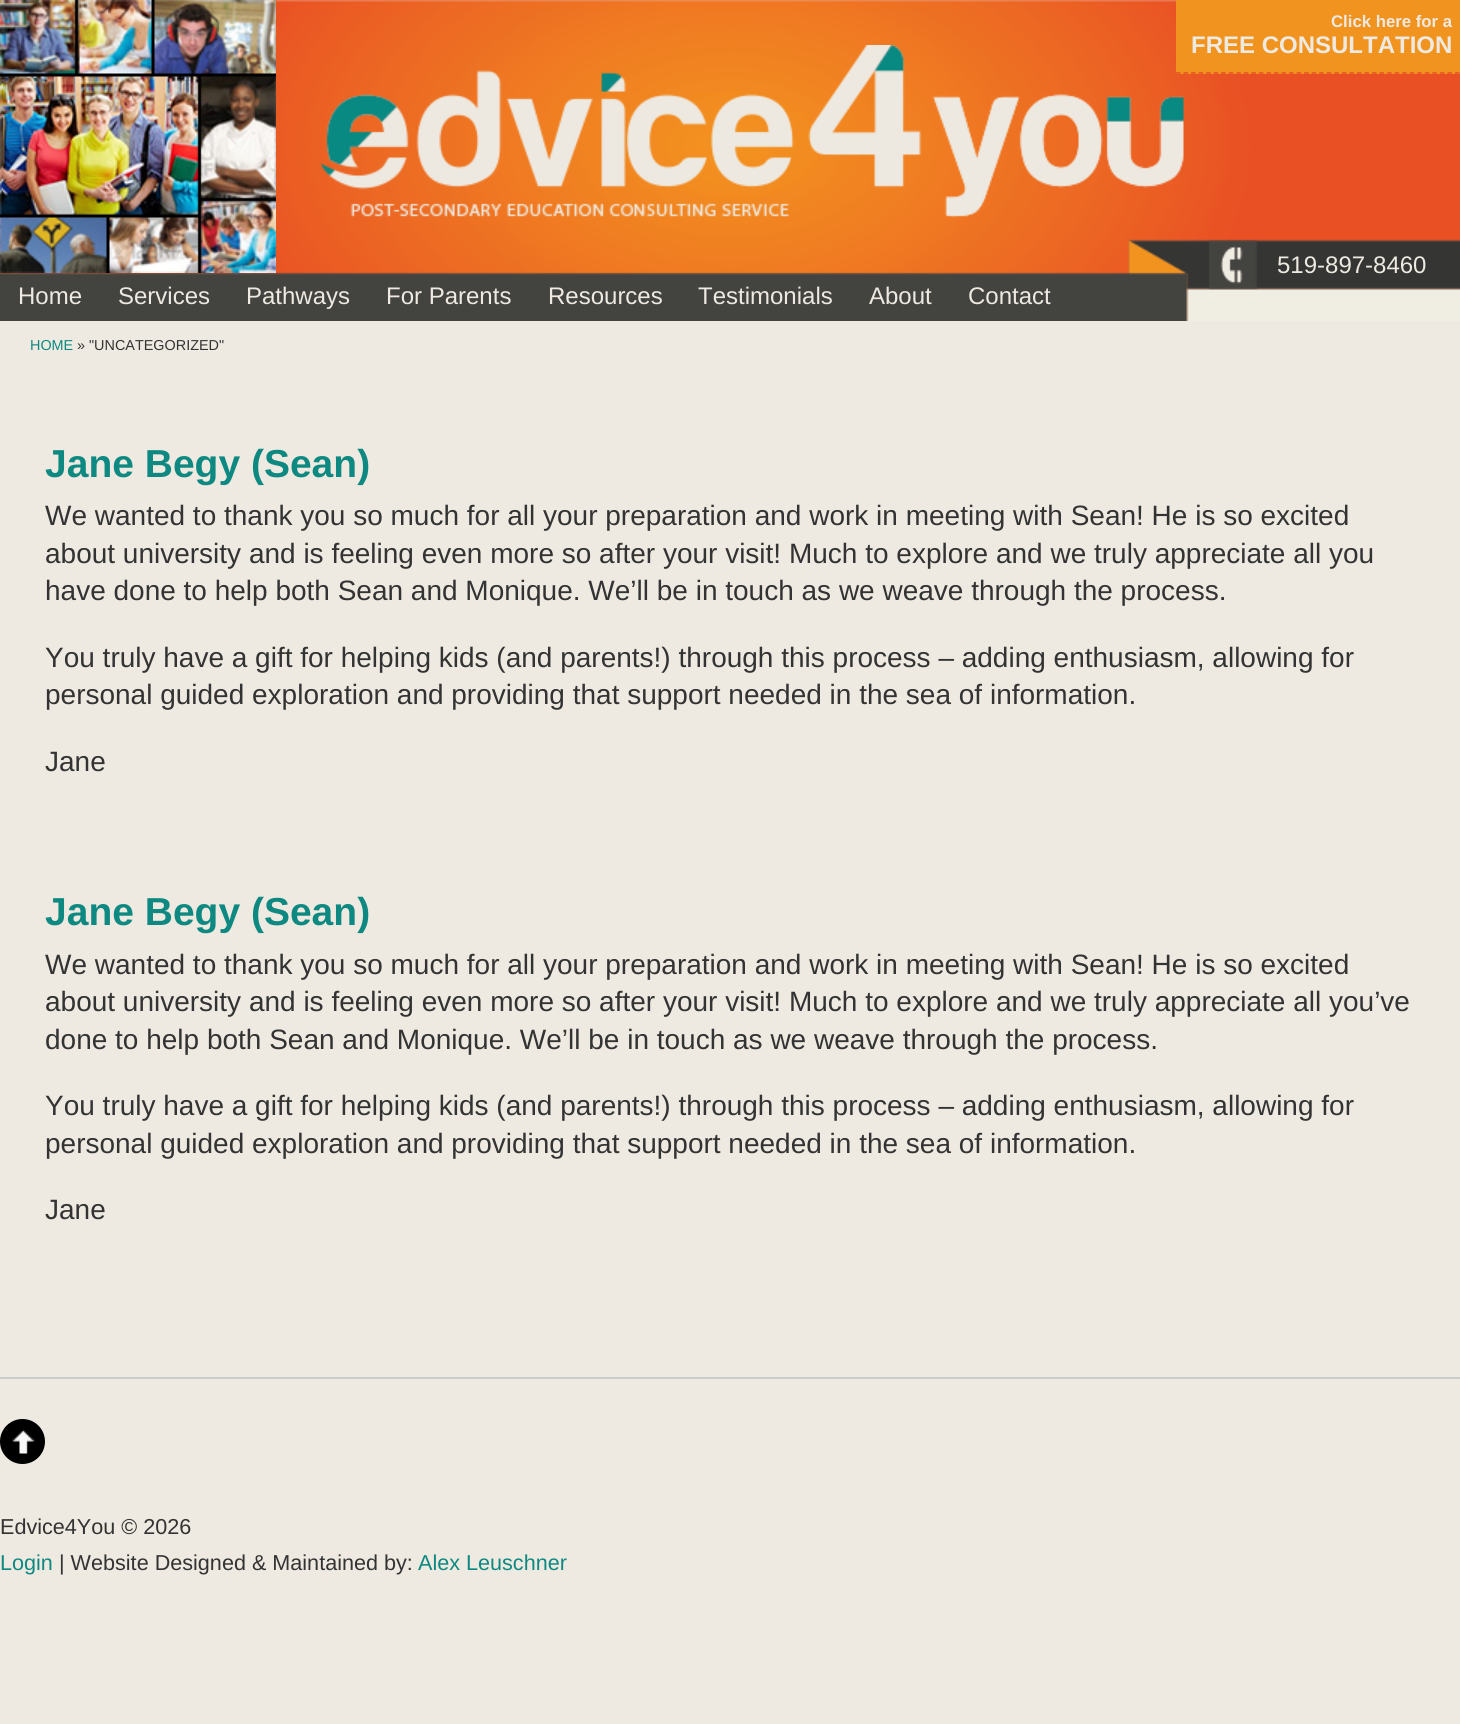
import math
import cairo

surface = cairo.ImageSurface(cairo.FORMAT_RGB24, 1460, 1724)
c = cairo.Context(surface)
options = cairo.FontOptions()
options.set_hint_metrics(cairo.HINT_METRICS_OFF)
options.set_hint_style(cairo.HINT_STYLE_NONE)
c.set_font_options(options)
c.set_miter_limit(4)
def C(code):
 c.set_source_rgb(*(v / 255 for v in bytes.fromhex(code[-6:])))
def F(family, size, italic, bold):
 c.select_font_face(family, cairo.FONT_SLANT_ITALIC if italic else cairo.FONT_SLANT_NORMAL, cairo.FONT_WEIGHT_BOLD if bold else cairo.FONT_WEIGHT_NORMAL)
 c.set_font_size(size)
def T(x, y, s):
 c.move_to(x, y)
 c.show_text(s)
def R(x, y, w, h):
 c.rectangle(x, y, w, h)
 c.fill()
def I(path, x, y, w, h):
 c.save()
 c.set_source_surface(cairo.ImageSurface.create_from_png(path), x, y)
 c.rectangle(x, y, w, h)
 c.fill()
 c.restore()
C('eeeae1')
c.paint()
I('1.png',0,0,1460,321)
I('2.png',0,0,276,273)
I('3.png',321,45,863,173)
C('f1931f')
R(1176,0,284,74)
c.new_path()
c.move_to(1176,73)
c.line_to(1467,73)
C('e74f24')
c.set_line_width(1.5)
c.set_dash([4.5,3.04])
c.stroke()
F('Liberation Sans',16.75,0,1)
C('eeeae1')
T(1331,27,'Click here for a')
F('Liberation Sans',24,0,1)
T(1191,53,'FREE CONSULTATION')
F('Liberation Sans',24,0,0)
T(1277,273,'519-897-8460')
T(18,304,'Home')
T(118,304,'Services')
T(246,304,'Pathways')
T(386,304,'For Parents')
T(548,304,'Resources')
T(698,304,'Testimonials')
T(869,304,'About')
T(968,304,'Contact')
F('Liberation Sans',14.4,0,0)
C('0d8981')
T(30,350,'HOME')
C('333333')
T(77,350,'» "UNCATEGORIZED"')
F('Liberation Sans',39,0,1)
C('0d8981')
T(45,477,'Jane Begy (Sean)')
F('Liberation Sans',28,0,0)
C('333333')
T(45,525,'We wanted to thank you so much for all your preparation and work in meeting with Sean! He is so excited')
T(45,563,'about university and is feeling even more so after your visit! Much to explore and we truly appreciate all you')
T(45,600,'have done to help both Sean and Monique. We’ll be in touch as we weave through the process.')
T(45,667,'You truly have a gift for helping kids (and parents!) through this process – adding enthusiasm, allowing for')
T(45,704,'personal guided exploration and providing that support needed in the sea of information.')
T(45,771,'Jane')
F('Liberation Sans',39,0,1)
C('0d8981')
T(45,925,'Jane Begy (Sean)')
F('Liberation Sans',28,0,0)
C('333333')
T(45,974,'We wanted to thank you so much for all your preparation and work in meeting with Sean! He is so excited')
T(45,1011,'about university and is feeling even more so after your visit! Much to explore and we truly appreciate all you’ve')
T(45,1049,'done to help both Sean and Monique. We’ll be in touch as we weave through the process.')
T(45,1115,'You truly have a gift for helping kids (and parents!) through this process – adding enthusiasm, allowing for')
T(45,1153,'personal guided exploration and providing that support needed in the sea of information.')
T(45,1219,'Jane')
C('cccccc')
R(0,1377,1460,2)
C('000000')
c.new_path()
c.arc(22.5,1441.5,22.5,0,2 * math.pi)
c.fill()
I('4.png',12,1429,23,25)
F('Liberation Sans',21.6,0,0)
C('333333')
T(0,1534,'Edvice4You © 2026')
C('0d8981')
T(0,1570,'Login')
C('333333')
T(59,1570,'| Website Designed & Maintained by:')
C('0d8981')
T(418,1570,'Alex Leuschner')
surface.write_to_png('o.png')
